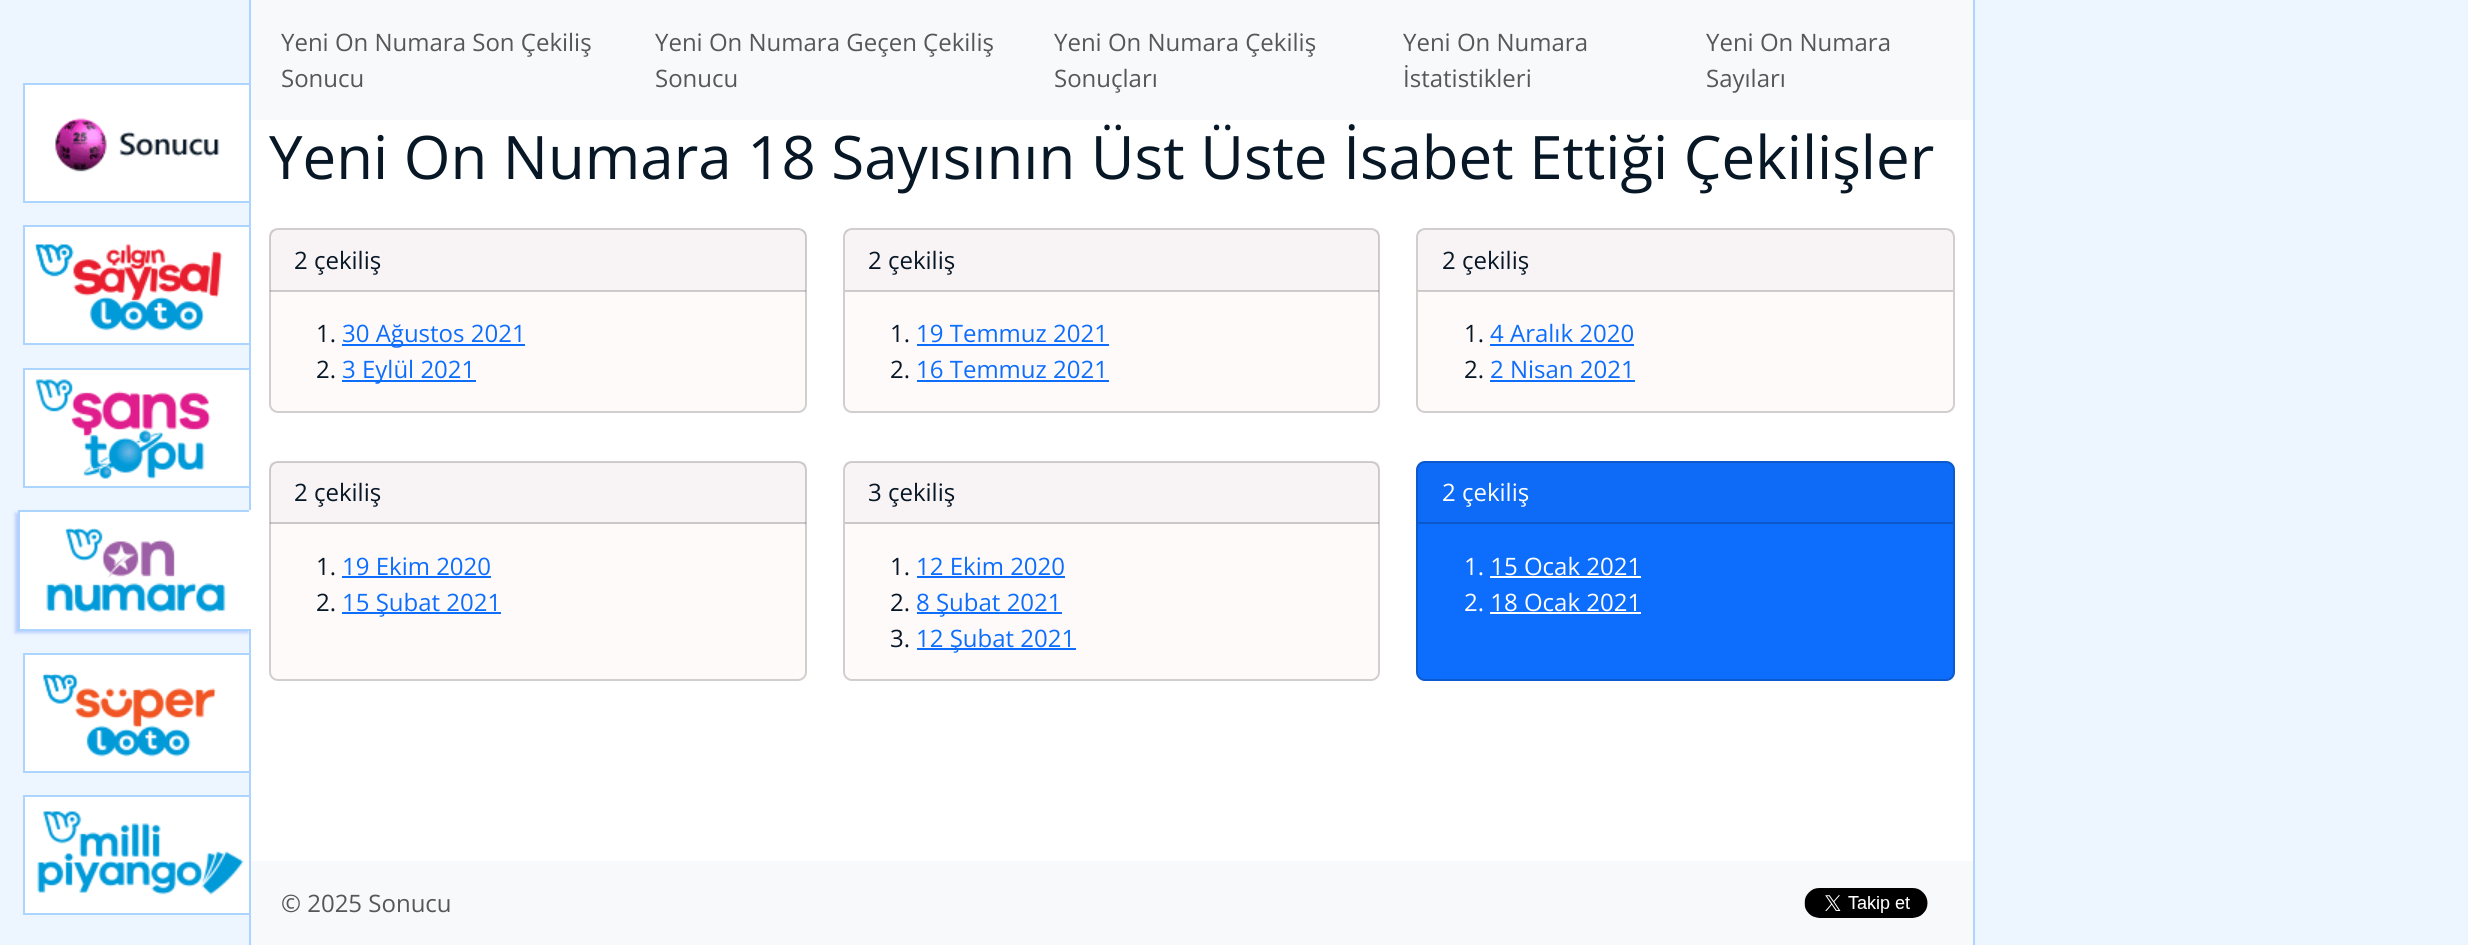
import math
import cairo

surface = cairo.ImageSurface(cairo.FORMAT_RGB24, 2468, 945)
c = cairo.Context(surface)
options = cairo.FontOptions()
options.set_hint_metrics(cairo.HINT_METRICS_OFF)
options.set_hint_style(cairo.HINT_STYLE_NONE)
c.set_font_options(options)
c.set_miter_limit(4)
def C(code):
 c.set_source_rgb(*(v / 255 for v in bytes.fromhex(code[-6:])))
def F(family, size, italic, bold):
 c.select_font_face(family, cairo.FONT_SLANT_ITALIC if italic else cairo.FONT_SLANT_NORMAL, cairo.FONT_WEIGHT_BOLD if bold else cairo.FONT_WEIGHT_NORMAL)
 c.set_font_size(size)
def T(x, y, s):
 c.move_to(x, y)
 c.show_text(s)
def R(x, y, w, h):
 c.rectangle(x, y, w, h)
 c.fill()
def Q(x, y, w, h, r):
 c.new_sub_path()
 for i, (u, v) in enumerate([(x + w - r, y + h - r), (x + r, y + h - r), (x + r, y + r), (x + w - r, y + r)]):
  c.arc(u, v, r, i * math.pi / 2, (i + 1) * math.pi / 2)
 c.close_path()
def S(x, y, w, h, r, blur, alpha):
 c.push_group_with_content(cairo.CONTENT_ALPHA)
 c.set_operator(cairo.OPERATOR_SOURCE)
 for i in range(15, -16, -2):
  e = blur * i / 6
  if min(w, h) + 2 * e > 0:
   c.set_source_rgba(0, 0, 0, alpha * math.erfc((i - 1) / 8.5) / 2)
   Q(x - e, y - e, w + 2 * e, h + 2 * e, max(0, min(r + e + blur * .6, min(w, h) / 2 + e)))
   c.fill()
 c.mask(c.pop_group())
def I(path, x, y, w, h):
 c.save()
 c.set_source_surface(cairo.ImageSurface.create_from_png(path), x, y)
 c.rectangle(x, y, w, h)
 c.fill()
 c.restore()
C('edf6ff')
c.paint()
C('ffffff')
R(25,85,224,116)
I('1.png',55,118,165,54)
C('abd5ff')
R(249,0,2,945)
c.rectangle(24,84,226,118)
c.stroke()
C('ffffff')
R(25,227,224,116)
I('2.png',34,244,189,87)
c.rectangle(24,226,226,118)
C('abd5ff')
c.stroke()
C('ffffff')
R(25,370,224,116)
I('3.png',35,379,176,100)
c.rectangle(24,369,226,118)
C('abd5ff')
c.stroke()
C('ffffff')
R(251,120,1722,741)
C('abbfff')
S(15,513,233,120,0,1.5,.75)
C('ffffff')
R(20,512,229,117)
I('4.png',46,527,180,86)
C('abd5ff')
R(18,510,233,2)
C('ffffff')
R(249,510,2,120)
C('abd5ff')
R(18,629,233,2)
R(18,510,2,120)
C('ffffff')
R(25,655,224,116)
I('5.png',42,673,175,84)
c.rectangle(24,654,226,118)
C('abd5ff')
c.stroke()
C('ffffff')
R(25,797,224,116)
I('6.png',37,811,207,84)
c.rectangle(24,796,226,118)
C('abd5ff')
c.stroke()
R(1973,0,2,945)
C('f8f9fa')
R(251,0,1722,120)
F('Open Sans',24,0,0)
C('575758')
T(281,51,'Yeni On Numara Son Çekiliş')
T(281,87,'Sonucu')
T(655,51,'Yeni On Numara Geçen Çekiliş')
T(655,87,'Sonucu')
T(1054,51,'Yeni On Numara Çekiliş')
T(1054,87,'Sonuçları')
T(1403,51,'Yeni On Numara')
T(1403,87,'İstatistikleri')
T(1706,51,'Yeni On Numara')
T(1706,87,'Sayıları')
F('Open Sans',60,0,0)
C('071726')
T(269,179,'Yeni On Numara 18 Sayısının Üst Üste İsabet Ettiği Çekilişler')
C('fffafa')
Q(270,229,536,183,8)
c.fill_preserve()
C('d2cece')
c.stroke()
c.set_source_rgba(0.027,0.09,0.149,0.03)
R(270,230,536,61)
c.set_source_rgba(0,0,0,0.18)
R(270,290,536,2)
F('Open Sans',24,0,0)
C('071726')
T(294,269,'2 çekiliş')
T(316,342,'1.')
C('0d6efd')
R(342,344,183,2)
T(342,342,'30 Ağustos 2021')
C('071726')
T(316,378,'2.')
C('0d6efd')
R(342,380,134,2)
T(342,378,'3 Eylül 2021')
C('fffafa')
Q(844,229,535,183,8)
c.fill_preserve()
C('d2cece')
c.stroke()
c.set_source_rgba(0.027,0.09,0.149,0.03)
R(845,230,534,61)
c.set_source_rgba(0,0,0,0.18)
R(845,290,534,2)
C('071726')
T(868,269,'2 çekiliş')
T(890,342,'1.')
C('0d6efd')
T(916,342,'19 Temmuz 2021')
R(917,344,192,2)
C('071726')
T(890,378,'2.')
C('0d6efd')
T(916,378,'16 Temmuz 2021')
R(917,380,192,2)
C('fffafa')
Q(1417,229,537,183,8)
c.fill_preserve()
C('d2cece')
c.stroke()
c.set_source_rgba(0.027,0.09,0.149,0.03)
R(1418,230,535,61)
c.set_source_rgba(0,0,0,0.18)
R(1418,290,535,2)
C('071726')
T(1442,269,'2 çekiliş')
T(1464,342,'1.')
C('0d6efd')
T(1490,342,'4 Aralık 2020')
R(1490,344,144,2)
C('071726')
T(1464,378,'2.')
C('0d6efd')
T(1490,378,'2 Nisan 2021')
R(1490,380,145,2)
C('fffafa')
Q(270,462,536,218,8)
c.fill_preserve()
C('d2cece')
c.stroke()
c.set_source_rgba(0.027,0.09,0.149,0.03)
R(270,462,536,62)
c.set_source_rgba(0,0,0,0.18)
R(270,522,536,2)
C('071726')
T(294,501,'2 çekiliş')
T(316,575,'1.')
C('0d6efd')
T(342,575,'19 Ekim 2020')
R(342,576,149,2)
C('071726')
T(316,611,'2.')
C('0d6efd')
R(342,612,159,2)
T(342,611,'15 Şubat 2021')
C('fffafa')
Q(844,462,535,218,8)
c.fill_preserve()
C('d2cece')
c.stroke()
c.set_source_rgba(0.027,0.09,0.149,0.03)
R(845,462,534,62)
c.set_source_rgba(0,0,0,0.18)
R(845,522,534,2)
C('071726')
T(868,501,'3 çekiliş')
T(890,575,'1.')
C('0d6efd')
T(916,575,'12 Ekim 2020')
R(917,576,148,2)
C('071726')
T(890,611,'2.')
C('0d6efd')
R(917,612,145,2)
T(916,611,'8 Şubat 2021')
C('071726')
T(890,647,'3.')
C('0d6efd')
R(917,648,159,2)
T(916,647,'12 Şubat 2021')
Q(1416,461,539,220,9)
c.fill()
Q(1417,462,537,218,8)
c.set_source_rgba(0,0,0,0.18)
c.stroke()
c.set_source_rgba(0.027,0.09,0.149,0.03)
R(1418,462,535,60)
C('0b58cb')
R(1418,522,535,2)
C('ffffff')
T(1442,501,'2 çekiliş')
T(1464,575,'1. 15 Ocak 2021')
R(1490,576,151,2)
T(1464,611,'2. 18 Ocak 2021')
R(1490,612,151,2)
C('f8f9fa')
R(251,861,1722,84)
C('575758')
T(281,912,'© 2025 Sonucu')
I('7.png',1804,888,124,30)
surface.write_to_png('o.png')
